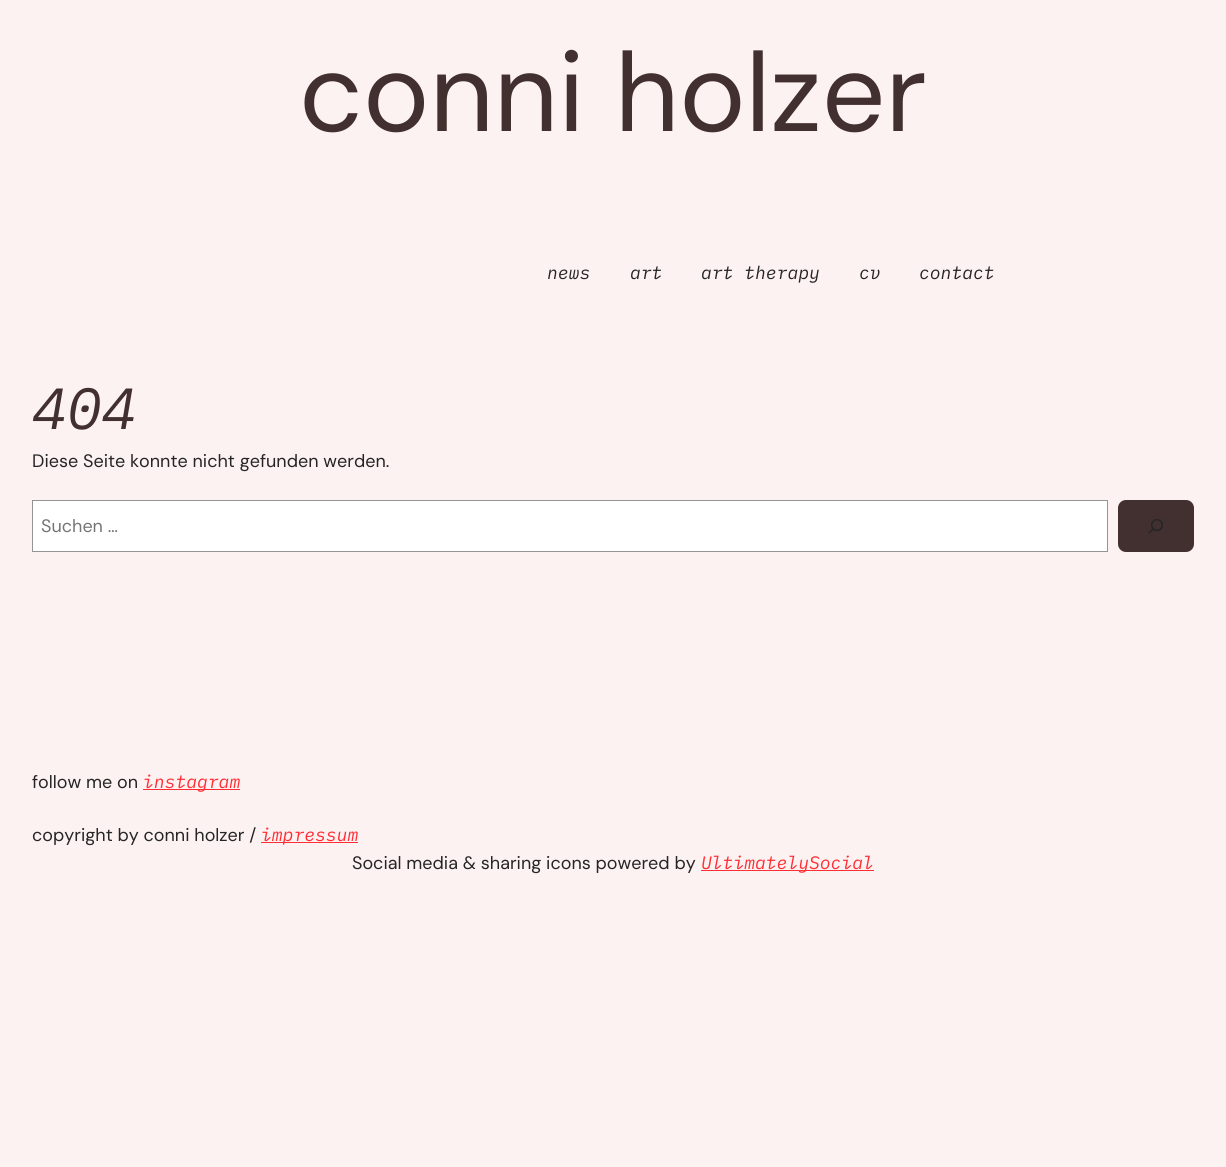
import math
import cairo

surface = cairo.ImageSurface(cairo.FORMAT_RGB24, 1226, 1167)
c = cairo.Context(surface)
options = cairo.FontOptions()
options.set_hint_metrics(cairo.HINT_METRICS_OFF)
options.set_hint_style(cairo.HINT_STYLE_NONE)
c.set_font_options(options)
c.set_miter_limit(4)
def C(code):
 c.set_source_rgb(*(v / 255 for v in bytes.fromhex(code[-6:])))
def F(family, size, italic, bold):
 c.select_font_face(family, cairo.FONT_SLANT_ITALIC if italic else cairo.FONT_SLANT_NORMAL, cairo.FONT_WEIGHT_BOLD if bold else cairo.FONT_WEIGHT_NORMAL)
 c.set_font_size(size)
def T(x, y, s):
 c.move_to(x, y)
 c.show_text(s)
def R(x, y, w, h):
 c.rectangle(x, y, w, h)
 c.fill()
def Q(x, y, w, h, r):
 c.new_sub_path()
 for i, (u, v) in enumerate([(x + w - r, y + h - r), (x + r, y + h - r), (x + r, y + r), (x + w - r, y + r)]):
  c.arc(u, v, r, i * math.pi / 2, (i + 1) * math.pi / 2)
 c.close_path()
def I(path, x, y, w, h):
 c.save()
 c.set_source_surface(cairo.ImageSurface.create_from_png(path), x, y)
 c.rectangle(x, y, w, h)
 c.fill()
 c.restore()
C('fdf2f2')
c.paint()
F('DM Sans',112,0,0)
C('422f2f')
T(299,131,'conni holzer')
F('IBM Plex Mono',18,1,0)
C('252525')
T(547,279,'news')
T(630,279,'art')
T(701,279,'art therapy')
T(859,279,'cv')
T(919,279,'contact')
F('IBM Plex Mono',58,1,0)
C('422f2f')
T(32,429,'404')
F('DM Sans',18,0,0)
C('252525')
T(32,467,'Diese Seite konnte nicht gefunden werden.')
C('ffffff')
c.rectangle(32.5,500.5,1075,51)
c.fill_preserve()
C('949494')
c.set_line_width(1)
c.stroke()
C('757575')
T(41,532,'Suchen …')
C('422f2f')
Q(1118,500,76,52,8)
c.fill()
I('1.png',1148,519,15,15)
C('252525')
T(32,788,'follow me on')
C('ff2d34')
R(143,789,97,1)
F('IBM Plex Mono',18,1,0)
T(143,788,'instagram')
F('DM Sans',18,0,0)
C('252525')
T(32,841,'copyright by conni holzer /')
C('ff2d34')
R(261,842,97,1)
F('IBM Plex Mono',18,1,0)
T(261,841,'impressum')
F('DM Sans',18,0,0)
C('252525')
T(352,869,'Social media & sharing icons powered by')
C('ff2d34')
R(701,870,173,1)
F('IBM Plex Mono',18,1,0)
T(701,869,'UltimatelySocial')
surface.write_to_png('o.png')
